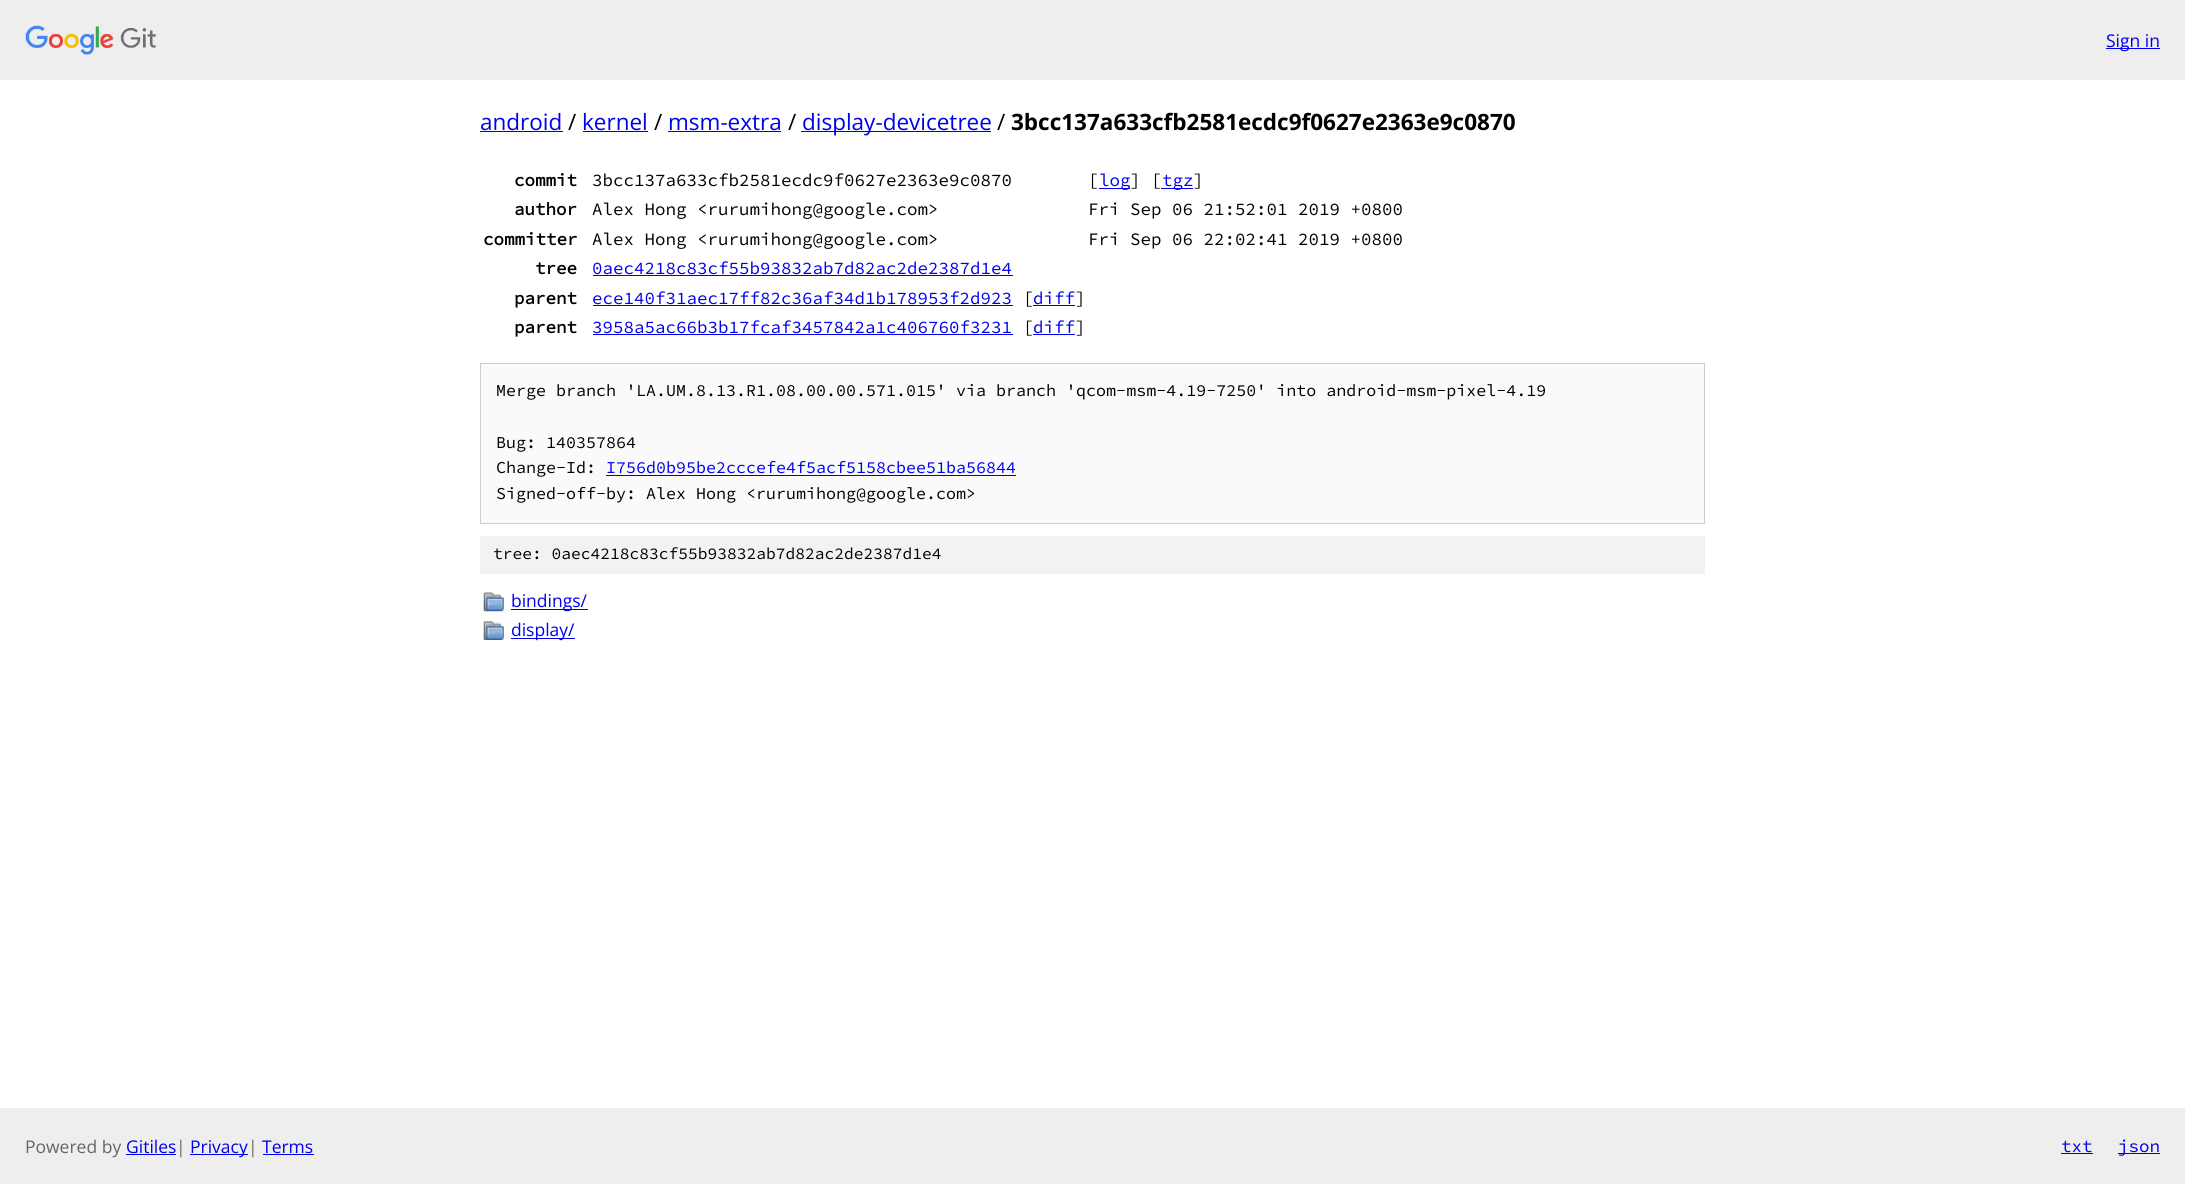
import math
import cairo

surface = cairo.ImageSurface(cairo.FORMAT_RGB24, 2185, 1184)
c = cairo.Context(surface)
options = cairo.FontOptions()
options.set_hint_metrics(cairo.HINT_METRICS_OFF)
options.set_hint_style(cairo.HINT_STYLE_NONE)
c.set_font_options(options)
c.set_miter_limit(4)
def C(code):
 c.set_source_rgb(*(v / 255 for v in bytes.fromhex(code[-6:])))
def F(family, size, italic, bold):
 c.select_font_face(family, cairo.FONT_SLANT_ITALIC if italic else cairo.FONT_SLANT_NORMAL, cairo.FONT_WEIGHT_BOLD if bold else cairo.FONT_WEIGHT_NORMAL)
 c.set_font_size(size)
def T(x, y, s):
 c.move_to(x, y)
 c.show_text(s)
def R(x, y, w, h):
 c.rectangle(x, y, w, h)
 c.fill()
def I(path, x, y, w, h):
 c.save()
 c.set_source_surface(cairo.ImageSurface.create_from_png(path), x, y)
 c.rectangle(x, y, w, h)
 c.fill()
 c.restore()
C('ffffff')
c.paint()
C('eeeeee')
R(0,0,2185,80)
I('1.png',25,25,131,30)
C('0000ee')
R(2106,48,54,1)
F('Open Sans',17.5,0,0)
T(2106,47,'Sign in')
F('Open Sans',22.5,0,0)
T(480,130,'android')
R(480,131,83,1)
C('000000')
T(568,130,'/')
C('0000ee')
T(582,130,'kernel')
R(583,131,65,1)
C('000000')
T(654,130,'/')
C('0000ee')
T(668,130,'msm-extra')
R(668,131,113,1)
C('000000')
T(788,130,'/')
C('0000ee')
R(801,131,190,1)
T(802,130,'display-devicetree')
C('000000')
T(997,130,'/')
F('Open Sans',22.5,0,1)
T(1011,130,'3bcc137a633cfb2581ecdc9f0627e2363e9c0870')
F('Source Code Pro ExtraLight',17.5,0,1)
T(514,186,'commit')
F('Source Code Pro ExtraLight ExtraLight',17.5,0,0)
T(592,186,'3bcc137a633cfb2581ecdc9f0627e2363e9c0870')
T(1088,186,'[')
C('0000ee')
R(1099,188,31,1)
T(1099,186,'log')
C('000000')
T(1130,186,'] [')
C('0000ee')
R(1161,188,32,1)
T(1162,186,'tgz')
C('000000')
T(1193,186,']')
F('Source Code Pro ExtraLight',17.5,0,1)
T(514,215,'author')
F('Source Code Pro ExtraLight ExtraLight',17.5,0,0)
T(592,215,'Alex Hong <rurumihong@google.com>')
T(1088,215,'Fri Sep 06 21:52:01 2019 +0800')
F('Source Code Pro ExtraLight',17.5,0,1)
T(483,245,'committer')
F('Source Code Pro ExtraLight ExtraLight',17.5,0,0)
T(592,245,'Alex Hong <rurumihong@google.com>')
T(1088,245,'Fri Sep 06 22:02:41 2019 +0800')
F('Source Code Pro ExtraLight',17.5,0,1)
T(535,274,'tree')
F('Source Code Pro ExtraLight ExtraLight',17.5,0,0)
C('0000ee')
T(592,274,'0aec4218c83cf55b93832ab7d82ac2de2387d1e4')
R(593,275,420,1)
F('Source Code Pro ExtraLight',17.5,0,1)
C('000000')
T(514,304,'parent')
F('Source Code Pro ExtraLight ExtraLight',17.5,0,0)
C('0000ee')
T(592,304,'ece140f31aec17ff82c36af34d1b178953f2d923')
R(593,305,420,1)
C('000000')
T(1023,304,'[')
C('0000ee')
R(1033,305,42,1)
T(1033,304,'diff')
C('000000')
T(1075,304,']')
F('Source Code Pro ExtraLight',17.5,0,1)
T(514,333,'parent')
F('Source Code Pro ExtraLight ExtraLight',17.5,0,0)
C('0000ee')
T(592,333,'3958a5ac66b3b17fcaf3457842a1c406760f3231')
R(593,334,420,1)
C('000000')
T(1023,333,'[')
C('0000ee')
R(1033,334,42,1)
T(1033,333,'diff')
C('000000')
T(1075,333,']')
C('fafafa')
c.rectangle(480.5,363.5,1224,160)
c.fill_preserve()
C('cccccc')
c.set_line_width(1)
c.stroke()
F('Source Code Pro ExtraLight ExtraLight',16.67,0,0)
C('000000')
T(496,396,'Merge branch \'LA.UM.8.13.R1.08.00.00.571.015\' via branch \'qcom-msm-4.19-7250\' into android-msm-pixel-4.19')
T(496,448,'Bug: 140357864')
T(496,473,'Change-Id:')
C('0000ee')
T(606,473,'I756d0b95be2cccefe4f5acf5158cbee51ba56844')
R(606,475,410,1)
C('000000')
T(496,499,'Signed-off-by: Alex Hong <rurumihong@google.com>')
C('f1f2f3')
R(480,536,1225,38)
F('Source Code Pro ExtraLight ExtraLight',16.25,0,0)
C('000000')
T(493,559,'tree: 0aec4218c83cf55b93832ab7d82ac2de2387d1e4')
I('2.png',483,592,21,20)
C('0000ee')
R(511,609,77,1)
F('Open Sans',17.5,0,0)
T(511,607,'bindings/')
I('3.png',483,621,21,19)
R(511,638,64,1)
T(511,636,'display/')
C('eeeeee')
R(0,1108,2185,76)
C('666666')
T(25,1153,'Powered by')
C('0000ee')
T(126,1153,'Gitiles')
R(126,1154,50,1)
C('666666')
T(176,1153,'|')
C('0000ee')
R(190,1154,58,1)
T(190,1153,'Privacy')
C('666666')
T(248,1153,'|')
C('0000ee')
T(262,1153,'Terms')
R(263,1154,51,1)
F('Source Code Pro ExtraLight ExtraLight',17.5,0,0)
T(2061,1152,'txt')
R(2061,1153,32,1)
R(2118,1153,42,1)
T(2118,1152,'json')
surface.write_to_png('o.png')
